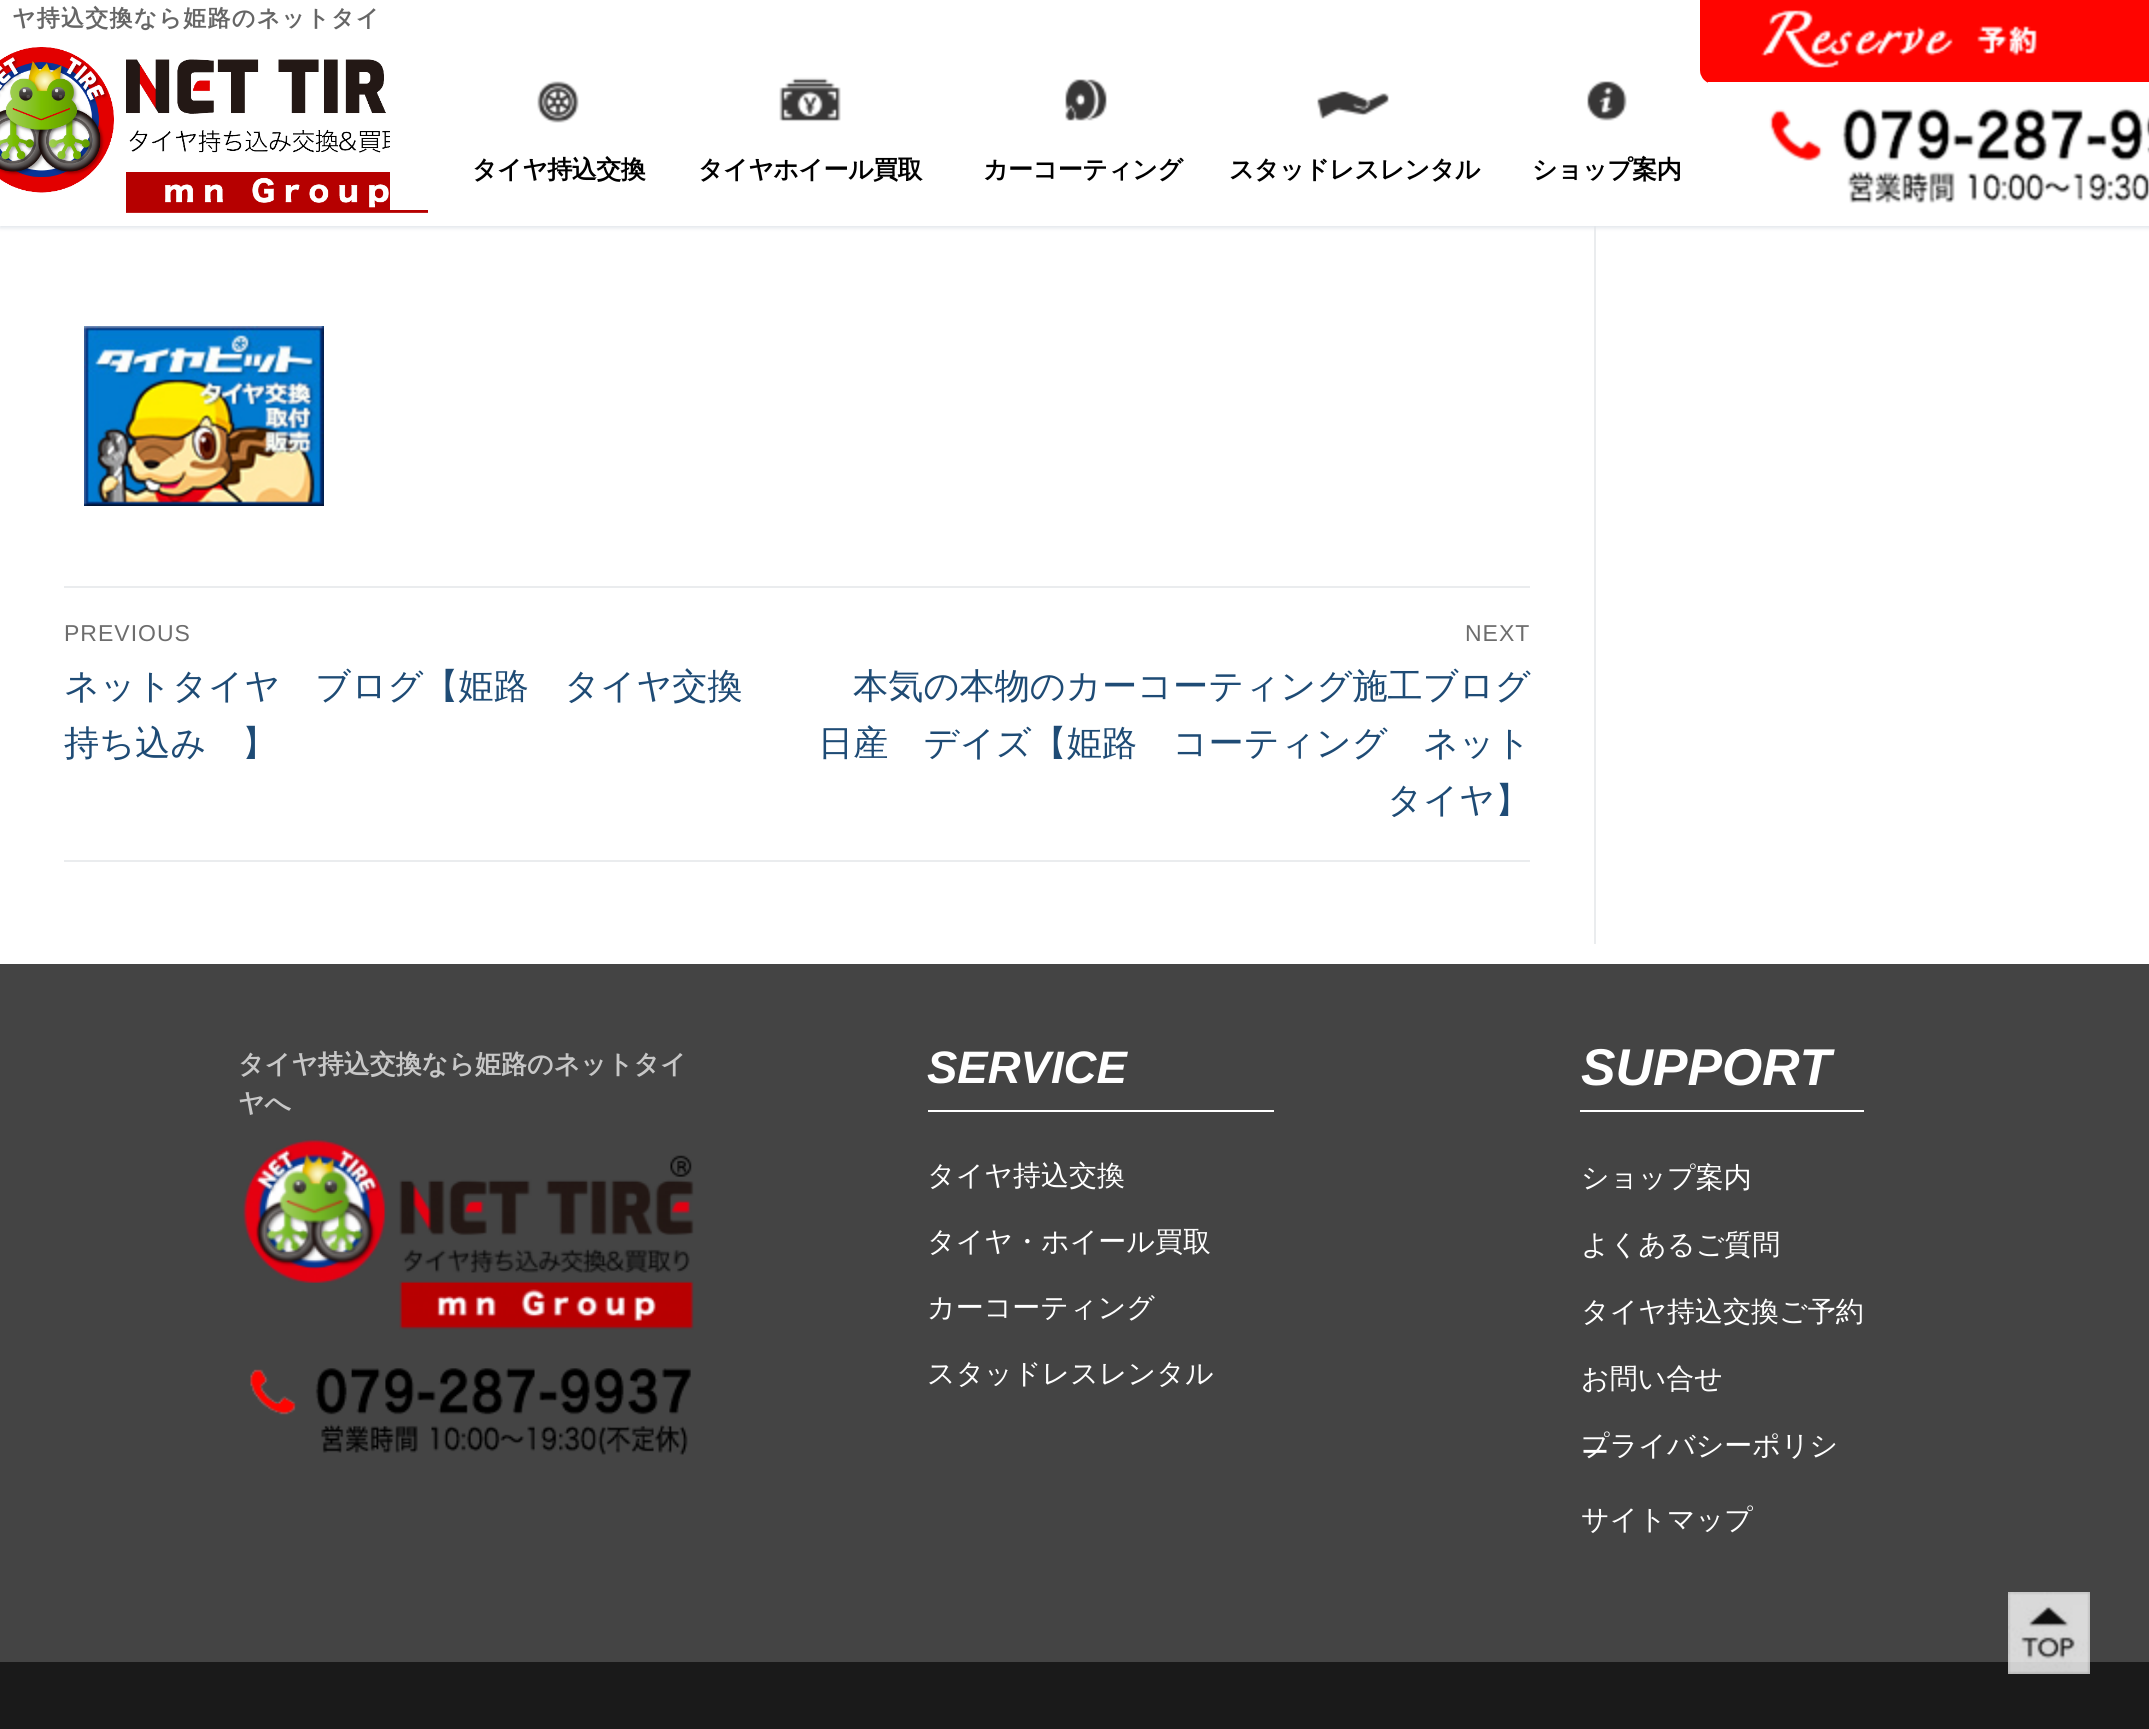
import math
import cairo

surface = cairo.ImageSurface(cairo.FORMAT_RGB24, 2149, 1729)
c = cairo.Context(surface)
options = cairo.FontOptions()
options.set_hint_metrics(cairo.HINT_METRICS_OFF)
options.set_hint_style(cairo.HINT_STYLE_NONE)
c.set_font_options(options)
c.set_miter_limit(4)
def C(code):
 c.set_source_rgb(*(v / 255 for v in bytes.fromhex(code[-6:])))
def F(family, size, italic, bold):
 c.select_font_face(family, cairo.FONT_SLANT_ITALIC if italic else cairo.FONT_SLANT_NORMAL, cairo.FONT_WEIGHT_BOLD if bold else cairo.FONT_WEIGHT_NORMAL)
 c.set_font_size(size)
def T(x, y, s):
 c.move_to(x, y)
 c.show_text(s)
def L(x, y, s, letter, word):
 c.move_to(x, y)
 for ch in s:
  c.show_text(ch)
  c.rel_move_to(letter + word * (ch == ' '), 0)
def R(x, y, w, h):
 c.rectangle(x, y, w, h)
 c.fill()
def Q(x, y, w, h, r):
 c.new_sub_path()
 for i, (u, v) in enumerate([(x + w - r, y + h - r), (x + r, y + h - r), (x + r, y + r), (x + w - r, y + r)]):
  c.arc(u, v, r, i * math.pi / 2, (i + 1) * math.pi / 2)
 c.close_path()
def S(x, y, w, h, r, blur, alpha):
 c.push_group_with_content(cairo.CONTENT_ALPHA)
 c.set_operator(cairo.OPERATOR_SOURCE)
 for i in range(15, -16, -2):
  e = blur * i / 6
  if min(w, h) + 2 * e > 0:
   c.set_source_rgba(0, 0, 0, alpha * math.erfc((i - 1) / 8.5) / 2)
   Q(x - e, y - e, w + 2 * e, h + 2 * e, max(0, min(r + e + blur * .6, min(w, h) / 2 + e)))
   c.fill()
 c.mask(c.pop_group())
def I(path, x, y, w, h):
 c.save()
 c.set_source_surface(cairo.ImageSurface.create_from_png(path), x, y)
 c.rectangle(x, y, w, h)
 c.fill()
 c.restore()
C('ffffff')
c.paint()
C('eaecee')
R(1594,226,2,718)
c.save()
c.rectangle(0,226,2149,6)
c.clip()
C('e1e5ea')
S(0,2,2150,226,0,2,1)
c.restore()
F('WenQuanYi Zen Hei',23,0,1)
C('666666')
L(12,26,'ヤ持込交換なら姫路のネットタイ',1.25,0)
I('1.png',0,43,428,170)
C('ffffff')
R(390,43,38,167)
I('2.png',537,81,42,42)
F('WenQuanYi Zen Hei',25,0,1)
C('000000')
L(472,178,'タイヤ持込交換',-.5,0)
I('3.png',779,77,62,45)
L(698,178,'タイヤホイール買取',-.5,0)
I('4.png',1065,79,42,42)
L(983,178,'カーコーティング',-.5,0)
I('5.png',1317,91,72,28)
L(1229,178,'スタッドレスレンタル',-.5,0)
I('6.png',1587,81,40,40)
L(1532,178,'ショップ案内',-.5,0)
I('7.png',1769,107,380,97)
I('8.png',1700,0,449,83)
C('ffffff')
R(1708,82,441,1)
I('9.png',84,326,240,180)
C('eaecee')
R(64,586,1466,2)
R(64,860,1466,2)
F('Liberation Sans',23,0,0)
C('6d6d6d')
L(64,641,'PREVIOUS',1,0)
F('WenQuanYi Zen Hei Medium',35.2,0,0)
C('1e4b75')
T(64,698,'ネットタイヤ　ブログ【姫路　タイヤ交換')
T(64,755,'持ち込み　】')
F('Liberation Sans',23,0,0)
C('6d6d6d')
L(1465,641,'NEXT',1,0)
F('WenQuanYi Zen Hei Medium',35.2,0,0)
C('1e4b75')
T(853,698,'本気の本物のカーコーティング施工ブログ')
T(818,755,'日産　デイズ【姫路　コーティング　ネット')
T(1387,812,'タイヤ】')
C('444444')
R(0,964,2149,698)
F('WenQuanYi Zen Hei',26,0,1)
C('c7c7c7')
T(238,1073,'タイヤ持込交換なら姫路のネットタイ')
T(238,1112,'ヤへ')
I('10.png',243,1139,451,191)
I('11.png',250,1368,441,87)
C('ffffff')
R(928,1110,346,2)
F('Liberation Sans',45.5,1,1)
T(927,1083,'SERVICE')
F('WenQuanYi Zen Hei Medium',28,0,0)
T(927,1185,'タイヤ持込交換')
T(927,1251,'タイヤ・ホイール買取')
T(927,1317,'カーコーティング')
T(927,1383,'スタッドレスレンタル')
R(1580,1110,284,2)
F('Liberation Sans',51.75,1,1)
T(1581,1085,'SUPPORT')
F('WenQuanYi Zen Hei Medium',28,0,0)
T(1581,1187,'ショップ案内')
T(1581,1254,'よくあるご質問')
T(1581,1321,'タイヤ持込交換ご予約')
T(1581,1388,'お問い合せ')
T(1581,1455,'プライバシーポリシ')
T(1581,1462,'ー')
T(1581,1529,'サイトマップ')
C('1a1a1a')
R(0,1662,2149,67)
I('12.png',2008,1592,82,82)
surface.write_to_png('o.png')
